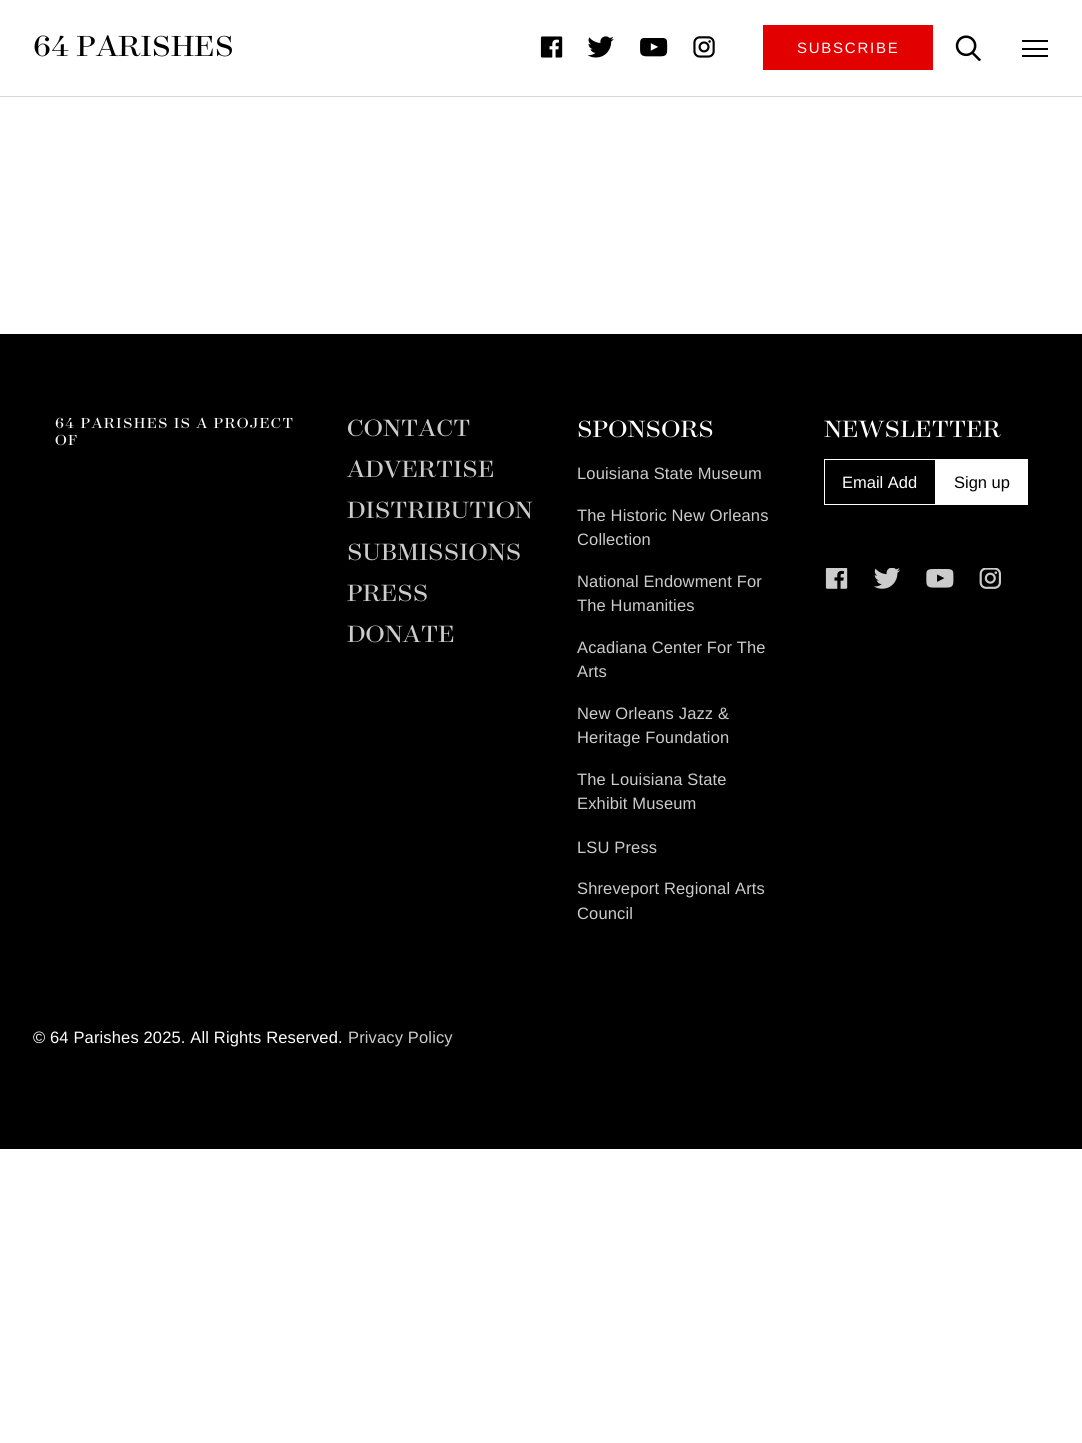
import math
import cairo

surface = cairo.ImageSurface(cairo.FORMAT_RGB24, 1082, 1443)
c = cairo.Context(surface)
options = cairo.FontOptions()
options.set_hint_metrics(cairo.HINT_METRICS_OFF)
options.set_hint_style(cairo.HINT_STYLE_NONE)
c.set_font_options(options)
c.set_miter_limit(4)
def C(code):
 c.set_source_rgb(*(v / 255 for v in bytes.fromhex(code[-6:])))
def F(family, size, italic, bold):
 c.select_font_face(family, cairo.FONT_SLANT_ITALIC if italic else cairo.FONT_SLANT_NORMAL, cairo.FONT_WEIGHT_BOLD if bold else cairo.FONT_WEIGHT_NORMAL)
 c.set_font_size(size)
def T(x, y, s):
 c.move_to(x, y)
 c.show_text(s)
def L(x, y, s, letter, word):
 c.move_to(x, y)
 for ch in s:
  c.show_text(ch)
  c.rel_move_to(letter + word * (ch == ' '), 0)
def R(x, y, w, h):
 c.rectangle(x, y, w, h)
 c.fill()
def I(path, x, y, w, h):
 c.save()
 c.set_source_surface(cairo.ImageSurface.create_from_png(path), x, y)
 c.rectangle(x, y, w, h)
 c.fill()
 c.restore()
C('ffffff')
c.paint()
C('d8d8d8')
R(0,96,1082,1)
F('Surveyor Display',33,0,0)
C('000000')
L(33,56,'64 PARISHES',.15,0)
I('1.png',540,36,23,22)
I('2.png',587,36,27,22)
I('3.png',640,38,28,19)
I('4.png',693,36,22,22)
C('e20000')
R(763,25,170,45)
F('Liberation Sans',15,0,0)
C('ffffff')
L(797,53,'SUBSCRIBE',1.75,0)
I('5.png',955,35,26,26)
C('000000')
R(1022,40,26,2)
R(1022,48,26,2)
R(1022,55,26,2)
R(0,334,1082,815)
F('Surveyor Display',16.5,0,0)
C('ffffff')
L(55,428,'64 PARISHES IS A PROJECT',1.3,0)
L(55,445,'OF',1.3,0)
F('Surveyor Display',26.75,0,0)
C('cccccc')
L(347,436,'CONTACT',.15,0)
L(347,477,'ADVERTISE',.15,0)
L(347,518,'DISTRIBUTION',.15,0)
L(347,560,'SUBMISSIONS',.15,0)
L(347,601,'PRESS',.15,0)
L(347,642,'DONATE',.15,0)
C('ffffff')
L(577,437,'SPONSORS',.15,0)
F('Liberation Sans',16.5,0,0)
C('cccccc')
L(577,479,'Louisiana State Museum',.15,0)
L(577,521,'The Historic New Orleans',.15,0)
L(577,545,'Collection',.15,0)
L(577,587,'National Endowment For',.15,0)
L(577,611,'The Humanities',.15,0)
L(577,653,'Acadiana Center For The',.15,0)
L(577,677,'Arts',.15,0)
L(577,719,'New Orleans Jazz &',.15,0)
L(577,743,'Heritage Foundation',.15,0)
L(577,785,'The Louisiana State',.15,0)
L(577,809,'Exhibit Museum',.15,0)
L(577,853,'LSU Press',.15,0)
L(577,894,'Shreveport Regional Arts',.15,0)
L(577,919,'Council',.15,0)
F('Surveyor Display',26.75,0,0)
C('ffffff')
L(824,437,'NEWSLETTER',.15,0)
c.rectangle(824.5,459.5,111,45)
c.set_line_width(1)
c.stroke()
F('Liberation Sans',16.5,0,0)
T(842,488,'Email Add')
R(936,459,92,46)
C('000000')
T(954,488,'Sign up')
I('6.png',825,568,23,21)
I('7.png',874,568,26,21)
I('8.png',926,569,28,19)
I('9.png',979,568,22,21)
C('ffffff')
L(33,1043,'© 64 Parishes 2025. All Rights Reserved.',.15,0)
C('cccccc')
L(348,1043,'Privacy Policy',.15,0)
surface.write_to_png('o.png')
